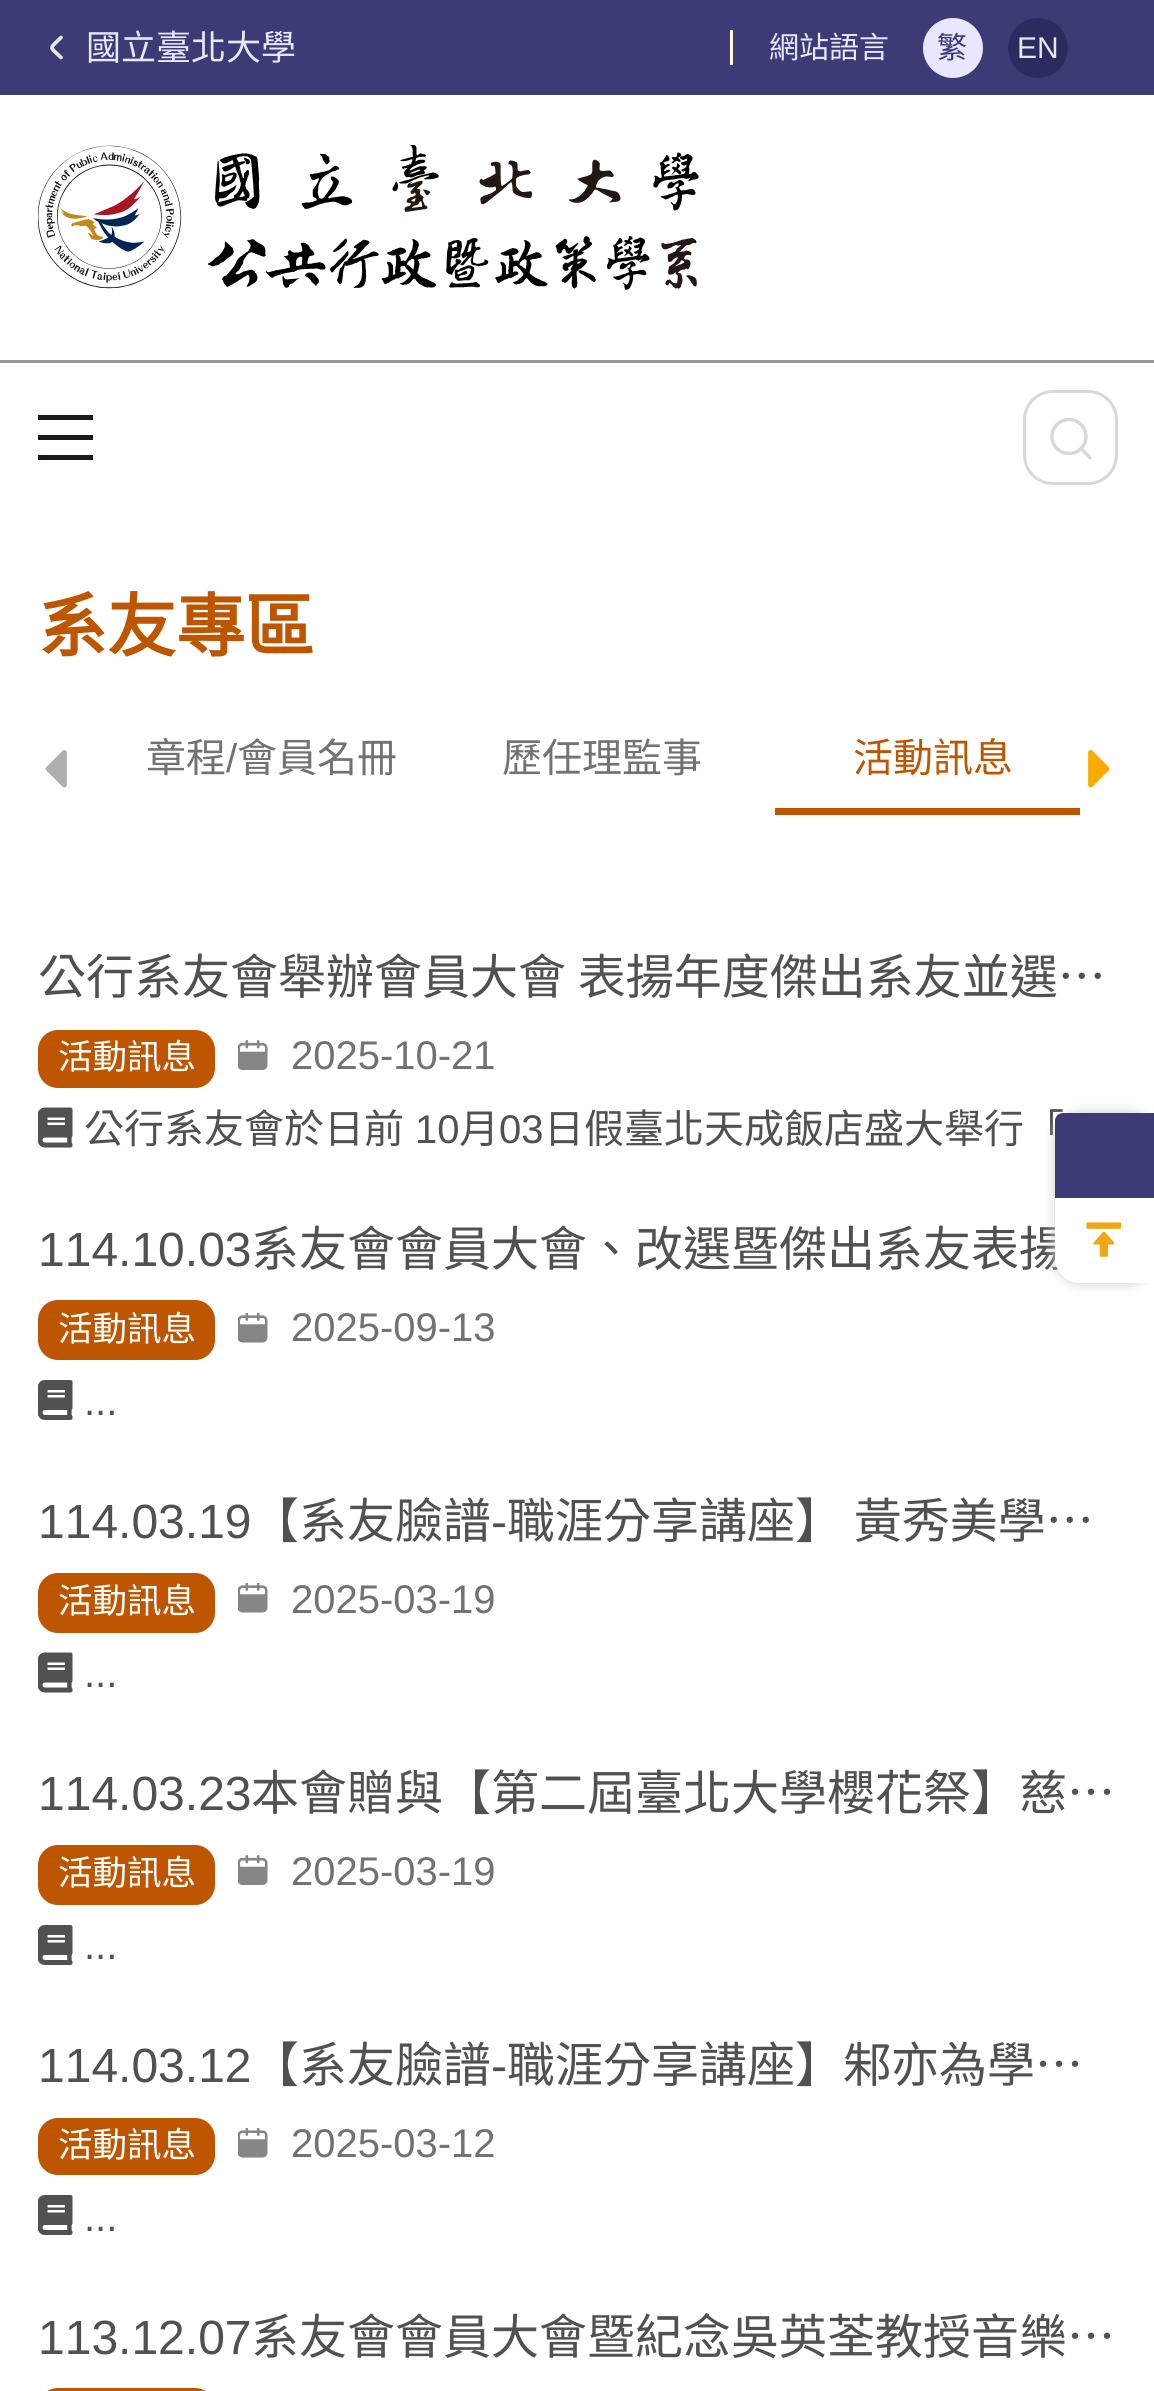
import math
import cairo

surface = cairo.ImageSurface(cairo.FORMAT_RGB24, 1154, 2391)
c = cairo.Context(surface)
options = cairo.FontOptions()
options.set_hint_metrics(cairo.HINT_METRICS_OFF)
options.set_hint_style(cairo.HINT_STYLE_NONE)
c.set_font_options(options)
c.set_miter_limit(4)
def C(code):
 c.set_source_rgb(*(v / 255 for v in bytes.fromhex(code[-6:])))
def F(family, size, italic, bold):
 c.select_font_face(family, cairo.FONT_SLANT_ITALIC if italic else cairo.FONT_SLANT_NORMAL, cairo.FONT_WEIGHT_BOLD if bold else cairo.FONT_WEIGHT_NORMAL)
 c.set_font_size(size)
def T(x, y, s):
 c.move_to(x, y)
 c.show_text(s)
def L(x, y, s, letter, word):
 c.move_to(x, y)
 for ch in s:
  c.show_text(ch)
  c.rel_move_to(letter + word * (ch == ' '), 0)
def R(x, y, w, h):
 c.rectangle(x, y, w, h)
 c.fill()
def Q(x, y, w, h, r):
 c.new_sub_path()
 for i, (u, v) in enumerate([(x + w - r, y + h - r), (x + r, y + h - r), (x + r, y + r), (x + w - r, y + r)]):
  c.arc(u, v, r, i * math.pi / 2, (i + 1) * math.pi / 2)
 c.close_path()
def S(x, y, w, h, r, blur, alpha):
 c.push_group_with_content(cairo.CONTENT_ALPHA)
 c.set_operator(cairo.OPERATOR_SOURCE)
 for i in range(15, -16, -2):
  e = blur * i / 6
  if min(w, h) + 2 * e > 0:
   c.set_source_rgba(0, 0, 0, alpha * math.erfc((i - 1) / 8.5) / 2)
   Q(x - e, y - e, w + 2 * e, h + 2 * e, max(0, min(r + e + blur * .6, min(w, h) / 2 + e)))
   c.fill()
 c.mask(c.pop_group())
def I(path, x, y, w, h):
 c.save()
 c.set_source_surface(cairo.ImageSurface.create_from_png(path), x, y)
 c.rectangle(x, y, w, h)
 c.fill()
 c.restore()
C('ffffff')
c.paint()
C('3c3b75')
R(0,0,1154,95)
c.new_path()
c.move_to(61,37.5)
c.curve_to(49,49.5,49,46,61,57.5)
C('e7e7ff')
c.set_line_width(3.7)
c.set_line_cap(cairo.LINE_CAP_ROUND)
c.stroke()
F('Noto Sans CJK TC',35,0,0)
T(86,60,'國立臺北大學')
C('fff3da')
R(730,30,3,35)
F('Noto Sans CJK TC',30,0,0)
C('e7e7ff')
T(769,58,'網站語言')
c.new_path()
c.arc(953,48,30,0,2 * math.pi)
c.fill()
C('3c3b75')
T(937,58,'繁')
C('2c2b5e')
c.new_path()
c.arc(1038,48,30,0,2 * math.pi)
c.fill()
F('Liberation Sans',30,0,0)
C('e7e7ff')
T(1017,58,'EN')
C('979797')
R(0,360,1154,3)
I('1.png',38,145,661,145)
C('221814')
R(38,415,55,5)
R(38,435,55,5)
R(38,455,55,5)
c.save()
c.rectangle(1050,418,43,42)
c.clip()
c.arc(1069,436.5,17,0,2 * math.pi)
C('d8d8d8')
c.set_line_width(3.5)
c.set_line_cap(cairo.LINE_CAP_BUTT)
c.stroke()
c.restore()
c.new_path()
c.move_to(1090,457.5)
c.line_to(1082,449.5)
C('d8d8d8')
c.set_line_width(3.5)
c.stroke()
Q(1024.5,391.5,92,92,28.5)
c.set_line_width(3)
c.set_line_cap(cairo.LINE_CAP_BUTT)
c.stroke()
F('Noto Sans CJK TC',69,0,1)
C('be5500')
T(38,651,'系友專區')
I('2.png',45,750,22,38)
F('Noto Sans CJK TC',40,0,0)
C('727272')
T(146,772,'章程')
F('Liberation Sans',40,0,0)
T(226,772,'/')
F('Noto Sans CJK TC',40,0,0)
T(237,772,'會員名冊')
T(502,772,'歷任理監事')
C('be5500')
R(775,808,305,7)
T(853,772,'活動訊息')
I('3.png',1088,750,22,38)
F('Noto Sans CJK TC',48,0,0)
C('515151')
L(38,994,'公行系友會舉辦會員大會 表揚年度傑出系友並選…',0,1)
C('be5500')
Q(38,1030,177,58,20)
c.fill()
F('Noto Sans CJK TC',34.5,0,0)
C('ffffff')
T(58,1069,'活動訊息')
I('4.png',238,1040,30,30)
F('Liberation Sans',40,0,0)
C('727272')
T(291,1069,'2025-10-21')
I('5.png',38,1107,35,41)
F('Noto Sans CJK TC',40,0,0)
C('515151')
T(84,1143,'公行系友會於日前')
F('Liberation Sans',40,0,0)
T(415,1143,'10')
F('Noto Sans CJK TC',40,0,0)
T(459,1143,'月')
F('Liberation Sans',40,0,0)
T(499,1143,'03')
F('Noto Sans CJK TC',40,0,0)
T(544,1143,'日假臺北天成飯店盛大舉行「')
F('Liberation Sans',48,0,0)
T(38,1266,'114.10.03')
F('Noto Sans CJK TC',48,0,0)
T(251,1266,'系友會會員大會、改選暨傑出系友表揚')
C('be5500')
Q(38,1300,177,60,20)
c.fill()
F('Noto Sans CJK TC',34.5,0,0)
C('ffffff')
T(58,1341,'活動訊息')
I('6.png',238,1313,30,30)
F('Liberation Sans',40,0,0)
C('727272')
T(291,1341,'2025-09-13')
I('7.png',38,1380,35,40)
C('515151')
T(84,1415,'...')
F('Liberation Sans',48,0,0)
T(38,1538,'114.03.19')
F('Noto Sans CJK TC',48,0,0)
T(251,1538,'【系友臉譜')
F('Liberation Sans',48,0,0)
T(491,1538,'-')
F('Noto Sans CJK TC',48,0,0)
T(507,1538,'職涯分享講座】 黃秀美學…')
C('be5500')
Q(38,1573,177,60,20)
c.fill()
F('Noto Sans CJK TC',34.5,0,0)
C('ffffff')
T(58,1613,'活動訊息')
I('6.png',238,1583,30,30)
F('Liberation Sans',40,0,0)
C('727272')
T(291,1613,'2025-03-19')
I('5.png',38,1652,35,41)
C('515151')
T(84,1687,'...')
F('Liberation Sans',48,0,0)
T(38,1810,'114.03.23')
F('Noto Sans CJK TC',48,0,0)
L(251,1810,'本會贈與【第二屆臺北大學櫻花祭】慈…',0,2)
C('be5500')
Q(38,1845,177,60,20)
c.fill()
F('Noto Sans CJK TC',34.5,0,0)
C('ffffff')
T(58,1885,'活動訊息')
I('4.png',238,1855,30,30)
F('Liberation Sans',40,0,0)
C('727272')
T(291,1885,'2025-03-19')
I('7.png',38,1925,35,40)
C('515151')
T(84,1959,'...')
F('Liberation Sans',48,0,0)
T(38,2082,'114.03.12')
F('Noto Sans CJK TC',48,0,0)
T(251,2082,'【系友臉譜')
F('Liberation Sans',48,0,0)
T(491,2082,'-')
F('Noto Sans CJK TC',48,0,0)
L(507,2082,'職涯分享講座】邾亦為學…',0,1)
C('be5500')
Q(38,2118,177,57,20)
c.fill()
F('Noto Sans CJK TC',34.5,0,0)
C('ffffff')
T(58,2157,'活動訊息')
I('6.png',238,2128,30,30)
F('Liberation Sans',40,0,0)
C('727272')
T(291,2157,'2025-03-12')
I('7.png',38,2195,35,40)
C('515151')
T(84,2231,'...')
F('Liberation Sans',48,0,0)
T(38,2354,'113.12.07')
F('Noto Sans CJK TC',48,0,0)
T(251,2354,'系友會會員大會暨紀念吳英荃教授音樂…')
C('be5500')
Q(38,2388,177,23,20)
c.fill()
C('cccccc')
S(1055,1113,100,170,25,6,1)
C('ffffff')
c.new_path()
c.move_to(1063,1113)
c.line_to(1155,1113)
c.line_to(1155,1283)
c.line_to(1080,1283)
c.curve_to(1066,1283,1055,1272,1055,1258)
c.line_to(1055,1121)
c.curve_to(1055,1116.5,1058.5,1113,1063,1113)
c.close_path()
c.fill()
C('3c3b75')
c.new_path()
c.move_to(1063,1113)
c.line_to(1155,1113)
c.line_to(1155,1198)
c.line_to(1055,1198)
c.line_to(1055,1121)
c.curve_to(1055,1116.5,1058.5,1113,1063,1113)
c.close_path()
c.fill()
I('8.png',1086,1222,36,35)
surface.write_to_png('o.png')
